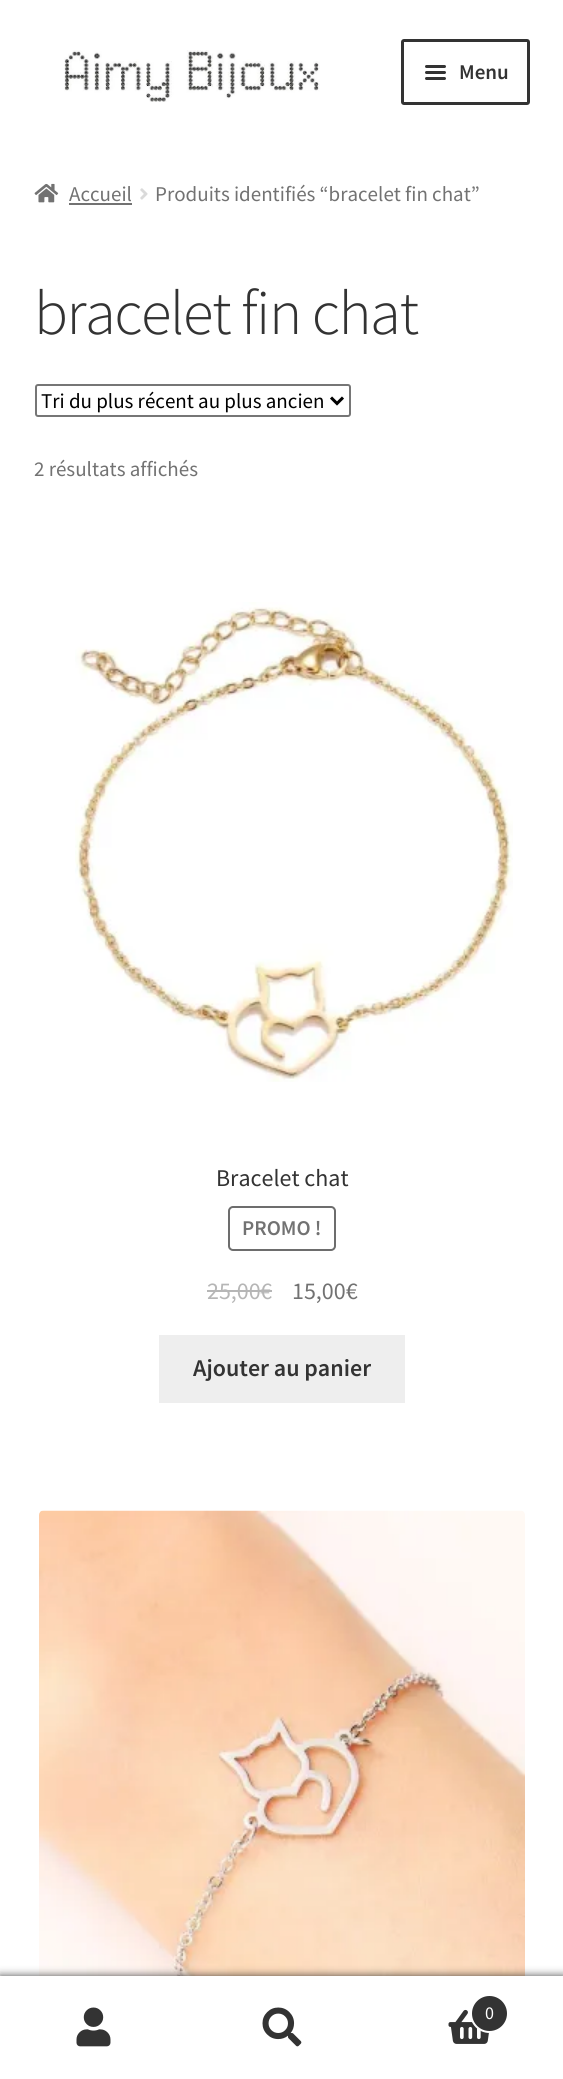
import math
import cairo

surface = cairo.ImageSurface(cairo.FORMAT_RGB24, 563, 2079)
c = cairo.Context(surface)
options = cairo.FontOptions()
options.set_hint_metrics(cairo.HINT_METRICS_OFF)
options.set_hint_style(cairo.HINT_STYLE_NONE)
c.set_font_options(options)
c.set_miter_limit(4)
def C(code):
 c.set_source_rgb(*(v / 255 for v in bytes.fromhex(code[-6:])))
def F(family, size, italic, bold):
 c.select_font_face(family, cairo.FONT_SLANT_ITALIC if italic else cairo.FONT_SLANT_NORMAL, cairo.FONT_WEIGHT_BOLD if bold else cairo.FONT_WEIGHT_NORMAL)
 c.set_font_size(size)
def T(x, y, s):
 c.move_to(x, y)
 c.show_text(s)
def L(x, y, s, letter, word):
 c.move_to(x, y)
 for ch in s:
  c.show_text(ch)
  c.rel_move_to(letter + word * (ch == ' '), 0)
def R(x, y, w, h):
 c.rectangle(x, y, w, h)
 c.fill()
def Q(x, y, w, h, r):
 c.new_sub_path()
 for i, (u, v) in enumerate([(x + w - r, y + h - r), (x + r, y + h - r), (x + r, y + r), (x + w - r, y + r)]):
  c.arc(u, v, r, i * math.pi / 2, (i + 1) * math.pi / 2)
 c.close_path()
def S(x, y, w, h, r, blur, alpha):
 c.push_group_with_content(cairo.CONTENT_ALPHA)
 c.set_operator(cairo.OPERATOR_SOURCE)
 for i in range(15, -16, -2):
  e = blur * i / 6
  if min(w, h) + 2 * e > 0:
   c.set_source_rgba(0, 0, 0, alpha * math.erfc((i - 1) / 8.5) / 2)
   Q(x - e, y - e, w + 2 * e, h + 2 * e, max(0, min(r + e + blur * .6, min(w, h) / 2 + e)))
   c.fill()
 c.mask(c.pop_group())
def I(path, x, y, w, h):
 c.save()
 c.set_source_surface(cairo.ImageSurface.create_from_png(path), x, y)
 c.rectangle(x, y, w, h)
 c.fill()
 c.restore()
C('ffffff')
c.paint()
I('1.png',64,50,256,52)
Q(402.5,40.5,126,63,1.5)
C('333333')
c.set_line_width(3)
c.stroke()
Q(425,65,21,3,1.5)
c.fill()
Q(425,71,21,3,1.5)
c.fill()
F('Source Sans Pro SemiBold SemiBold',21,0,0)
T(459,79,'Menu')
Q(425,77,21,3,1.5)
c.fill()
I('2.png',34,183,25,20)
F('Source Sans Pro',21,0,0)
C('727272')
T(69,201,'Accueil')
R(69,203,63,2)
I('3.png',140,188,8,12)
T(155,201,'Produits identifiés “bracelet fin chat”')
F('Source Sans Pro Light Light',62.75,0,0)
C('333333')
L(34,334,'bracelet fin chat',-1.5,0)
Q(36,385,314,31,2)
C('767676')
c.set_line_width(2)
c.stroke()
c.new_path()
c.move_to(331,397.5)
c.line_to(337,403.5)
c.line_to(343,397.5)
C('000000')
c.set_line_width(3)
c.stroke()
F('Source Sans Pro',21,0,0)
T(41,408,'Tri du plus récent au plus ancien')
C('727272')
T(34,476,'2 résultats affichés')
I('4.png',75,602,438,480)
F('Source Sans Pro',24,0,0)
C('333333')
T(216,1186,'Bracelet chat')
Q(229,1207,106,43,4)
C('6d6d6d')
c.set_line_width(2)
c.stroke()
F('Source Sans Pro SemiBold SemiBold',21,0,0)
C('727272')
T(242,1235,'PROMO !')
F('Source Sans Pro',24,0,0)
C('b6b6b6')
T(207,1299,'25,00')
R(207,1290,54,2)
T(260,1299,'€')
R(261,1290,11,2)
C('727272')
T(292,1299,'15,00€')
C('eeeeee')
R(159,1335,246,68)
F('Source Sans Pro SemiBold SemiBold',24,0,0)
C('333333')
T(193,1376,'Ajouter au panier')
I('5.png',39,1510,486,466)
C('000000')
S(0,1976,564,103,0,4.5,.7)
C('ffffff')
R(0,1976,563,1)
R(0,1977,563,102)
I('6.png',76,2007,35,40)
I('7.png',262,2007,40,40)
I('8.png',448,2009,41,35)
C('333333')
c.arc(489.5,2013.5,18.5,0,2 * math.pi)
c.fill_preserve()
C('ffffff')
c.stroke()
F('Source Sans Pro',18,0,0)
T(485,2019,'0')
surface.write_to_png('o.png')
